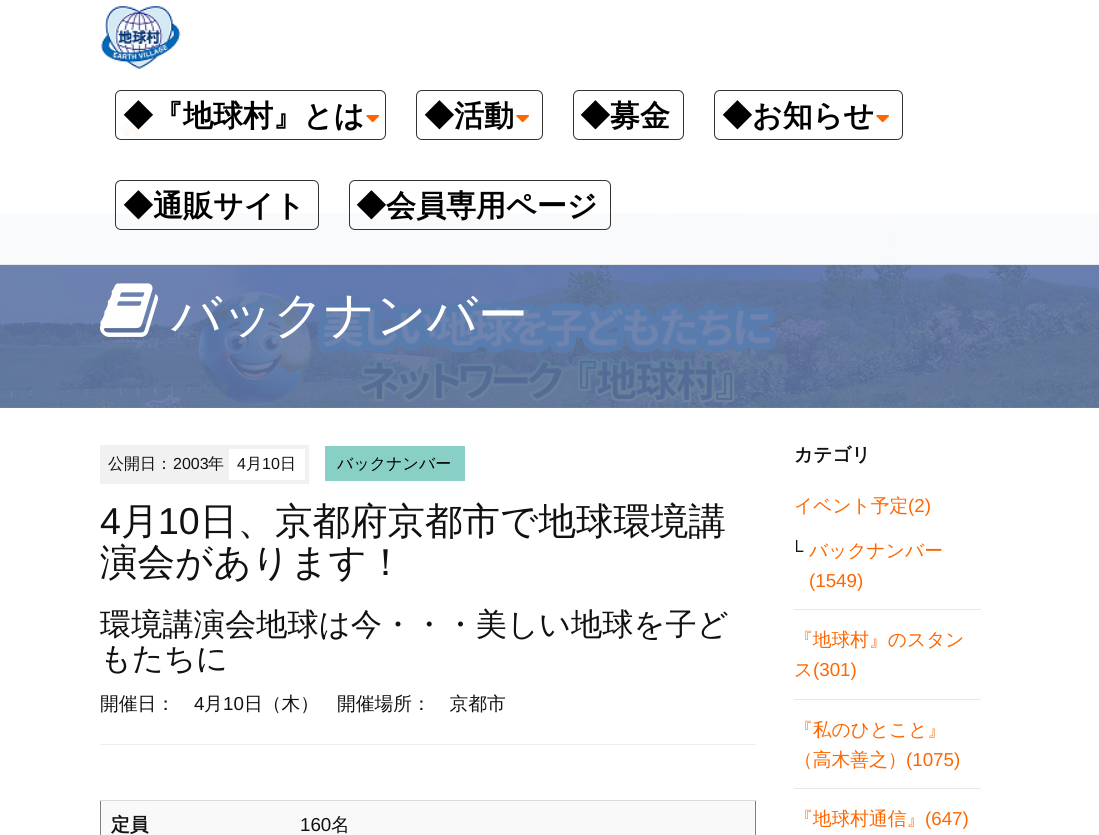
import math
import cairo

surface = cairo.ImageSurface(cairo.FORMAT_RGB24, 1099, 835)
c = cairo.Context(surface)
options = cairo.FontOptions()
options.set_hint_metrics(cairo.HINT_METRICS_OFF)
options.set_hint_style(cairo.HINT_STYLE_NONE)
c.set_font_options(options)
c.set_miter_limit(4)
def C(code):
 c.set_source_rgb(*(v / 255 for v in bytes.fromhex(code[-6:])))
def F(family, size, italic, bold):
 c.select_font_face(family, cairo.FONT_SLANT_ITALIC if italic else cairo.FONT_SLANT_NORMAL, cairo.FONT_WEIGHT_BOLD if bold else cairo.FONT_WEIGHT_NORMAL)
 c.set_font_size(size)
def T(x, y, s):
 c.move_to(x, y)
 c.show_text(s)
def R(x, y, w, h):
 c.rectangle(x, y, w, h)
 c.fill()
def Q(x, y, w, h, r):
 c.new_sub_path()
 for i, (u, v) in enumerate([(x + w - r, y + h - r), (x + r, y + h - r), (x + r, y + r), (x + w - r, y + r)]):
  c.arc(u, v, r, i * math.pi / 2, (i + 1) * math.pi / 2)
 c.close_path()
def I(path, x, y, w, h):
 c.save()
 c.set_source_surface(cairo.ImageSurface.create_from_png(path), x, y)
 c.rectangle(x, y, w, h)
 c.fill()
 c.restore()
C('ffffff')
c.paint()
C('6f84af')
R(0,407,1099,1)
C('f6f6f6')
R(0,100,1099,113)
C('e9e9e9')
R(0,213,1099,1)
R(100,100,1,113)
R(163,100,1,56)
c.new_path()
c.move_to(162,158)
c.line_to(162,100)
c.line_to(176,129)
c.close_path()
c.fill()
R(296,100,1,2)
c.new_path()
c.move_to(296,158)
c.line_to(296,100)
c.line_to(310,129)
c.close_path()
c.fill()
R(468,100,1,56)
c.new_path()
c.move_to(468,158)
c.line_to(468,100)
c.line_to(481,129)
c.close_path()
c.fill()
C('ffffff')
R(101,156,522,57)
C('f6f6f6')
c.new_path()
c.move_to(161,158)
c.line_to(161,100)
c.line_to(175,129)
c.close_path()
c.fill()
I('1.png',120,119,23,19)
c.new_path()
c.move_to(295,158)
c.line_to(295,100)
c.line_to(309,129)
c.close_path()
c.fill()
c.new_path()
c.move_to(466,158)
c.line_to(466,100)
c.line_to(480,129)
c.close_path()
c.fill()
C('e9e9e9')
R(659,100,1,56)
c.new_path()
c.move_to(659,158)
c.line_to(659,100)
c.line_to(672,129)
c.close_path()
c.fill()
C('f6f6f6')
c.new_path()
c.move_to(658,158)
c.line_to(658,100)
c.line_to(671,129)
c.close_path()
c.fill()
C('e9e9e9')
R(623,156,1,57)
I('6.png',0,213,1099,195)
c.set_source_rgba(1,1,1,0.96)
R(0,100,1099,165)
C('e9e9e9')
c.new_path()
c.move_to(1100,265)
c.line_to(0,265)
c.line_to(1,264)
c.line_to(1099,264)
c.close_path()
c.fill()
I('2.png',101,6,80,63)
Q(115.5,90.5,270,49,5.5)
C('333333')
c.set_line_width(1)
c.stroke()
F('WenQuanYi Zen Hei',30,0,1)
C('000000')
T(123,126,'◆『地球村』とは')
I('3.png',366,115,14,8)
Q(416.5,90.5,126,49,5.5)
C('333333')
c.stroke()
C('000000')
T(424,126,'◆活動')
I('4.png',516,115,14,8)
Q(573.5,90.5,110,49,5.5)
C('333333')
c.stroke()
C('000000')
T(580,126,'◆募金')
Q(714.5,90.5,188,49,5.5)
C('333333')
c.stroke()
C('000000')
T(722,126,'◆お知らせ')
I('5.png',876,115,14,8)
Q(115.5,180.5,203,49,5.5)
C('333333')
c.stroke()
C('000000')
T(123,216,'◆通販サイト')
Q(349.5,180.5,261,49,5.5)
C('333333')
c.stroke()
C('000000')
T(356,216,'◆会員専用ページ')
I('7.png',100,283,59,54)
F('WenQuanYi Zen Hei Medium',50,0,0)
C('ffffff')
T(171,332,'バックナンバー')
C('f1f1f1')
R(100,445,209,39)
F('WenQuanYi Zen Hei Medium',16,0,0)
C('111111')
T(108,469,'公開日：')
F('Liberation Sans',16,0,0)
T(173,469,'2003')
F('WenQuanYi Zen Hei Medium',16,0,0)
T(208,469,'年')
C('ffffff')
R(229,449,76,31)
F('Liberation Sans',16,0,0)
C('111111')
T(237,469,'4')
F('WenQuanYi Zen Hei Medium',16,0,0)
T(246,469,'月')
F('Liberation Sans',16,0,0)
T(262,469,'10')
F('WenQuanYi Zen Hei Medium',16,0,0)
T(280,469,'日')
C('88cfc5')
R(325,446,140,35)
C('000000')
T(337,469,'バックナンバー')
F('Liberation Sans',37.5,0,0)
C('111111')
T(100,534,'4')
F('WenQuanYi Zen Hei Medium',37.5,0,0)
T(121,534,'月')
F('Liberation Sans',37.5,0,0)
T(158,534,'10')
F('WenQuanYi Zen Hei Medium',37.5,0,0)
T(200,534,'日、京都府京都市で地球環境講')
T(100,575,'演会があります！')
F('WenQuanYi Zen Hei Medium',31.25,0,0)
T(100,635,'環境講演会地球は今・・・美しい地球を子ど')
T(100,669,'もたちに')
F('WenQuanYi Zen Hei Medium',18.75,0,0)
T(100,710,'開催日：')
F('Liberation Sans',18.75,0,0)
T(194,710,'4')
F('WenQuanYi Zen Hei Medium',18.75,0,0)
T(204,710,'月')
F('Liberation Sans',18.75,0,0)
T(223,710,'10')
F('WenQuanYi Zen Hei Medium',18.75,0,0)
T(244,710,'日（木）')
T(337,710,'開催場所：　京都市')
C('eeeeee')
R(100,744,656,1)
C('808080')
R(755,800,1,35)
R(100,800,1,35)
C('f9f9f9')
R(101,801,654,34)
F('WenQuanYi Zen Hei',18.75,0,1)
C('111111')
T(111,831,'定員')
C('dddddd')
R(100,800,656,1)
F('Liberation Sans',18.75,0,0)
C('111111')
T(300,831,'160')
F('WenQuanYi Zen Hei Medium',18.75,0,0)
T(331,831,'名')
F('WenQuanYi Zen Hei',18.75,0,1)
T(794,461,'カテゴリ')
C('e9e9e9')
R(794,609,187,1)
F('WenQuanYi Zen Hei Medium',18.75,0,0)
C('ff6600')
T(794,512,'イベント予定')
F('Liberation Sans',18.75,0,0)
T(908,512,'(2)')
C('111111')
T(790,557,'└')
F('WenQuanYi Zen Hei Medium',18.75,0,0)
C('ff6600')
T(809,557,'バックナンバー')
F('Liberation Sans',18.75,0,0)
T(809,587,'(1549)')
C('e9e9e9')
R(794,699,187,1)
F('WenQuanYi Zen Hei Medium',18.75,0,0)
C('ff6600')
T(794,646,'『地球村』のスタン')
T(794,676,'ス')
F('Liberation Sans',18.75,0,0)
T(813,676,'(301)')
C('e9e9e9')
R(794,788,187,1)
F('WenQuanYi Zen Hei Medium',18.75,0,0)
C('ff6600')
T(794,736,'『私のひとこと』')
T(794,766,'（高木善之）')
F('Liberation Sans',18.75,0,0)
T(906,766,'(1075)')
F('WenQuanYi Zen Hei Medium',18.75,0,0)
T(794,825,'『地球村通信』')
F('Liberation Sans',18.75,0,0)
T(925,825,'(647)')
surface.write_to_png('o.png')
